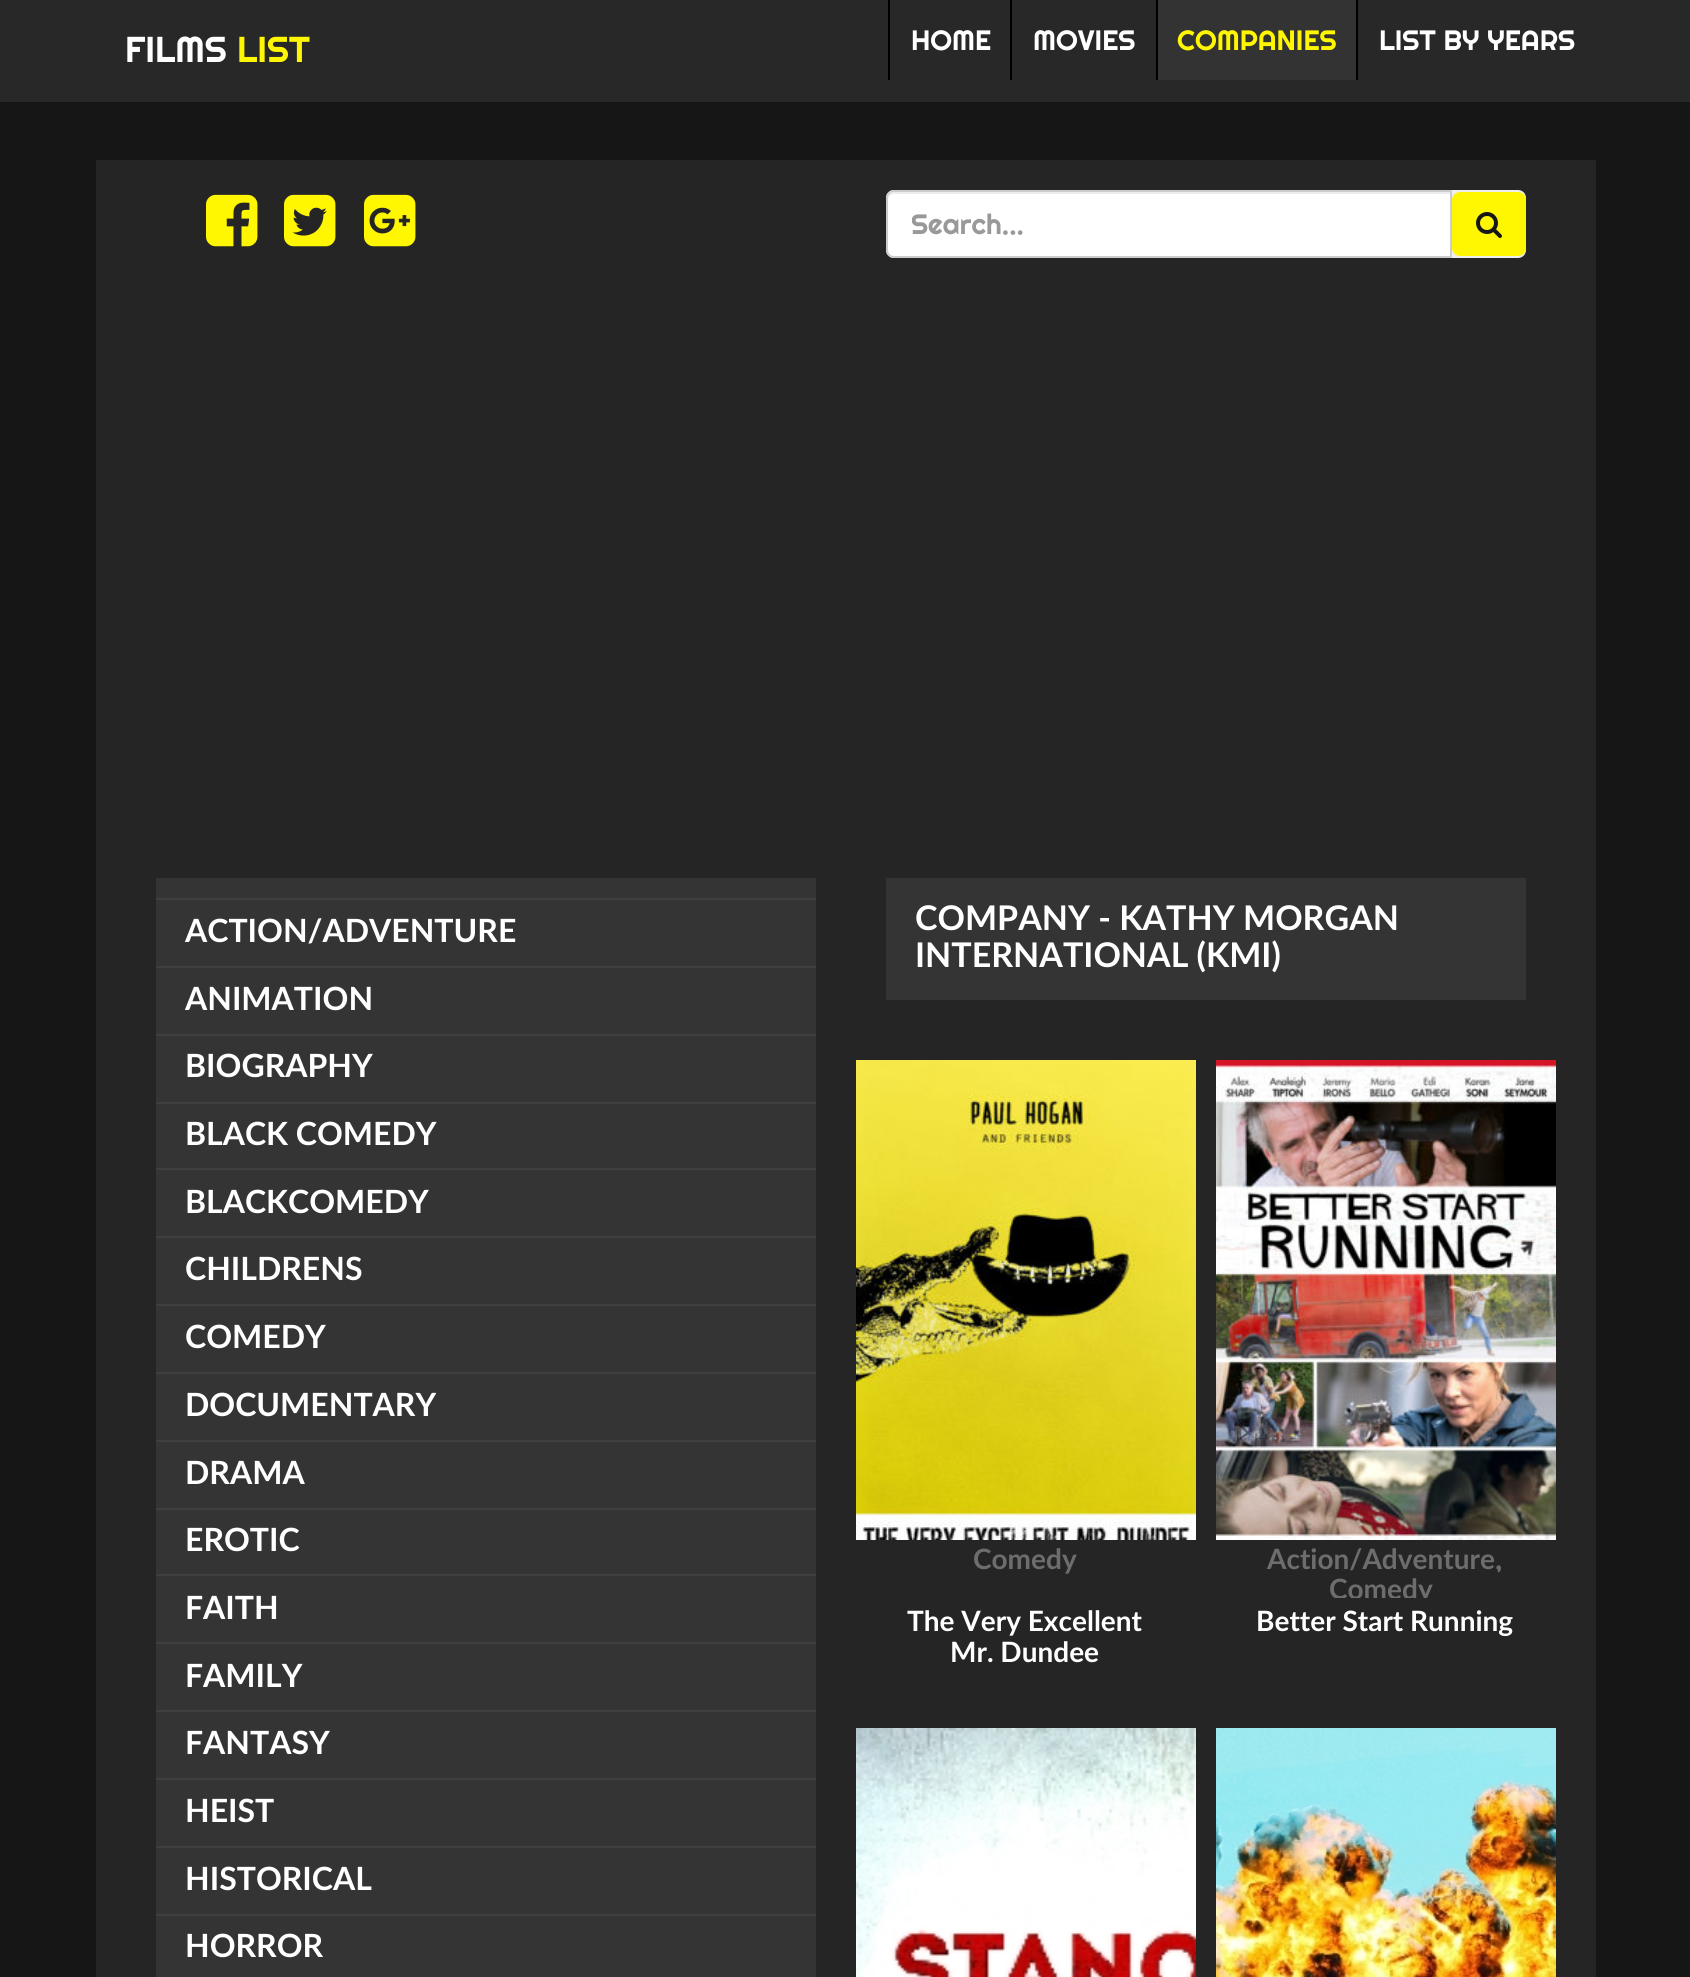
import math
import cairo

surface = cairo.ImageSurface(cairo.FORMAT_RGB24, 1690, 1977)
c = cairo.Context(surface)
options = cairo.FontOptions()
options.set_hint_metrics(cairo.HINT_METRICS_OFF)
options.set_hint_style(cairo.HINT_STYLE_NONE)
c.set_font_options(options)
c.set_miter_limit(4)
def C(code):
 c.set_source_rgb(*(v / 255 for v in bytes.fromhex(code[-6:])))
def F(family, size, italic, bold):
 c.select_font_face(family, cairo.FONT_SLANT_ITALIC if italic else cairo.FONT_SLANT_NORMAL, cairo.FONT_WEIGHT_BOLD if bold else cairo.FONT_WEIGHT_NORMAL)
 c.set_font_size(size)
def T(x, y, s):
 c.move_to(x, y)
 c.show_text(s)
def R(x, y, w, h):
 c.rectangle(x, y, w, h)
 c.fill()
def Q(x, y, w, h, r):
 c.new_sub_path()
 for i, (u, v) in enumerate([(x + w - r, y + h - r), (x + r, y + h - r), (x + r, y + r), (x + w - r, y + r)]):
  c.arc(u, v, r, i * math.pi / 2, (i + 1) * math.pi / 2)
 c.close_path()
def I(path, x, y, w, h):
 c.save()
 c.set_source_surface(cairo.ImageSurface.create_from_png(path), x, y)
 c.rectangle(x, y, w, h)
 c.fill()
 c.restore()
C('161616')
c.paint()
C('282828')
R(0,0,1690,102)
F('Righteous',36,0,0)
C('ffffff')
T(125,62,'FILMS')
C('fff601')
T(237,62,'LIST')
C('000000')
R(888,0,2,80)
F('Righteous',28,0,0)
C('ffffff')
T(911,50,'HOME')
C('000000')
R(1010,0,2,80)
C('ffffff')
T(1033,50,'MOVIES')
C('000000')
R(1156,0,2,80)
C('333333')
R(1158,0,198,80)
C('fff601')
T(1177,50,'COMPANIES')
C('000000')
R(1356,0,2,80)
C('ffffff')
T(1379,50,'LIST BY YEARS')
C('252525')
R(96,160,1500,1817)
I('1.png',206,194,52,53)
I('2.png',284,194,52,53)
I('3.png',364,194,52,53)
C('ffffff')
c.new_path()
c.move_to(894,190)
c.line_to(1452,190)
c.line_to(1452,258)
c.line_to(894,258)
c.curve_to(889.5,258,886,254.5,886,250)
c.line_to(886,198)
c.curve_to(886,193.5,889.5,190,894,190)
c.close_path()
c.fill()
C('ececec')
c.new_path()
c.move_to(894,194)
c.line_to(1450,194)
c.line_to(1450,192)
c.line_to(894,192)
c.curve_to(891,192,888,195,888,198)
c.line_to(888,200)
c.curve_to(888,197,891,194,894,194)
c.close_path()
c.fill()
c.new_path()
c.move_to(894,191)
c.line_to(1451,191)
c.line_to(1451,257)
c.line_to(894,257)
c.curve_to(890,257,887,254,887,250)
c.line_to(887,198)
c.curve_to(887,194,890,191,894,191)
c.close_path()
C('cccccc')
c.stroke()
c.save()
c.rectangle(912,206,514,36)
c.clip()
C('999999')
T(911,234,'Search...')
c.restore()
C('eeeeee')
c.new_path()
c.move_to(1452,190)
c.line_to(1518,190)
c.curve_to(1522.5,190,1526,193.5,1526,198)
c.line_to(1526,250)
c.curve_to(1526,254.5,1522.5,258,1518,258)
c.line_to(1452,258)
c.close_path()
c.fill()
C('fff601')
Q(1452,192,74,64,8)
c.fill()
I('4.png',1476,212,26,26)
C('343434')
R(156,878,660,1099)
C('3f3f3f')
R(156,898,660,2)
R(156,966,660,2)
F('Lato',32,0,1)
C('ffffff')
T(185,942,'ACTION/ADVENTURE')
C('3f3f3f')
R(156,1034,660,2)
C('ffffff')
T(185,1010,'ANIMATION')
C('3f3f3f')
R(156,1102,660,2)
C('ffffff')
T(185,1077,'BIOGRAPHY')
C('3f3f3f')
R(156,1168,660,2)
C('ffffff')
T(185,1145,'BLACK COMEDY')
C('3f3f3f')
R(156,1236,660,2)
C('ffffff')
T(185,1213,'BLACKCOMEDY')
C('3f3f3f')
R(156,1304,660,2)
C('ffffff')
T(185,1280,'CHILDRENS')
C('3f3f3f')
R(156,1372,660,2)
C('ffffff')
T(185,1348,'COMEDY')
C('3f3f3f')
R(156,1440,660,2)
C('ffffff')
T(185,1416,'DOCUMENTARY')
C('3f3f3f')
R(156,1508,660,2)
C('ffffff')
T(185,1484,'DRAMA')
C('3f3f3f')
R(156,1574,660,2)
C('ffffff')
T(185,1551,'EROTIC')
C('3f3f3f')
R(156,1642,660,2)
C('ffffff')
T(185,1619,'FAITH')
C('3f3f3f')
R(156,1710,660,2)
C('ffffff')
T(185,1687,'FAMILY')
C('3f3f3f')
R(156,1778,660,2)
C('ffffff')
T(185,1754,'FANTASY')
C('3f3f3f')
R(156,1846,660,2)
C('ffffff')
T(185,1822,'HEIST')
C('3f3f3f')
R(156,1914,660,2)
C('ffffff')
T(185,1890,'HISTORICAL')
T(185,1957,'HORROR')
C('343434')
R(886,878,640,122)
F('Lato',34,0,1)
C('ffffff')
T(915,930,'COMPANY - KATHY MORGAN')
T(915,967,'INTERNATIONAL (KMI)')
I('5.png',856,1060,340,480)
F('Lato',28,0,1)
C('6d6d6d')
T(973,1569,'Comedy')
C('ffffff')
T(907,1631,'The Very Excellent')
T(950,1662,'Mr. Dundee')
I('6.png',1216,1060,340,480)
C('6d6d6d')
T(1267,1569,'Action/Adventure')
F('Righteous',28,0,0)
T(1495,1569,',')
c.save()
c.rectangle(1206,1540,360,58)
c.clip()
F('Lato',28,0,1)
T(1329,1599,'Comedy')
c.restore()
F('Lato',28,0,1)
C('ffffff')
T(1256,1631,'Better Start Running')
I('7.png',856,1728,340,249)
I('8.png',1216,1728,340,249)
surface.write_to_png('o.png')
